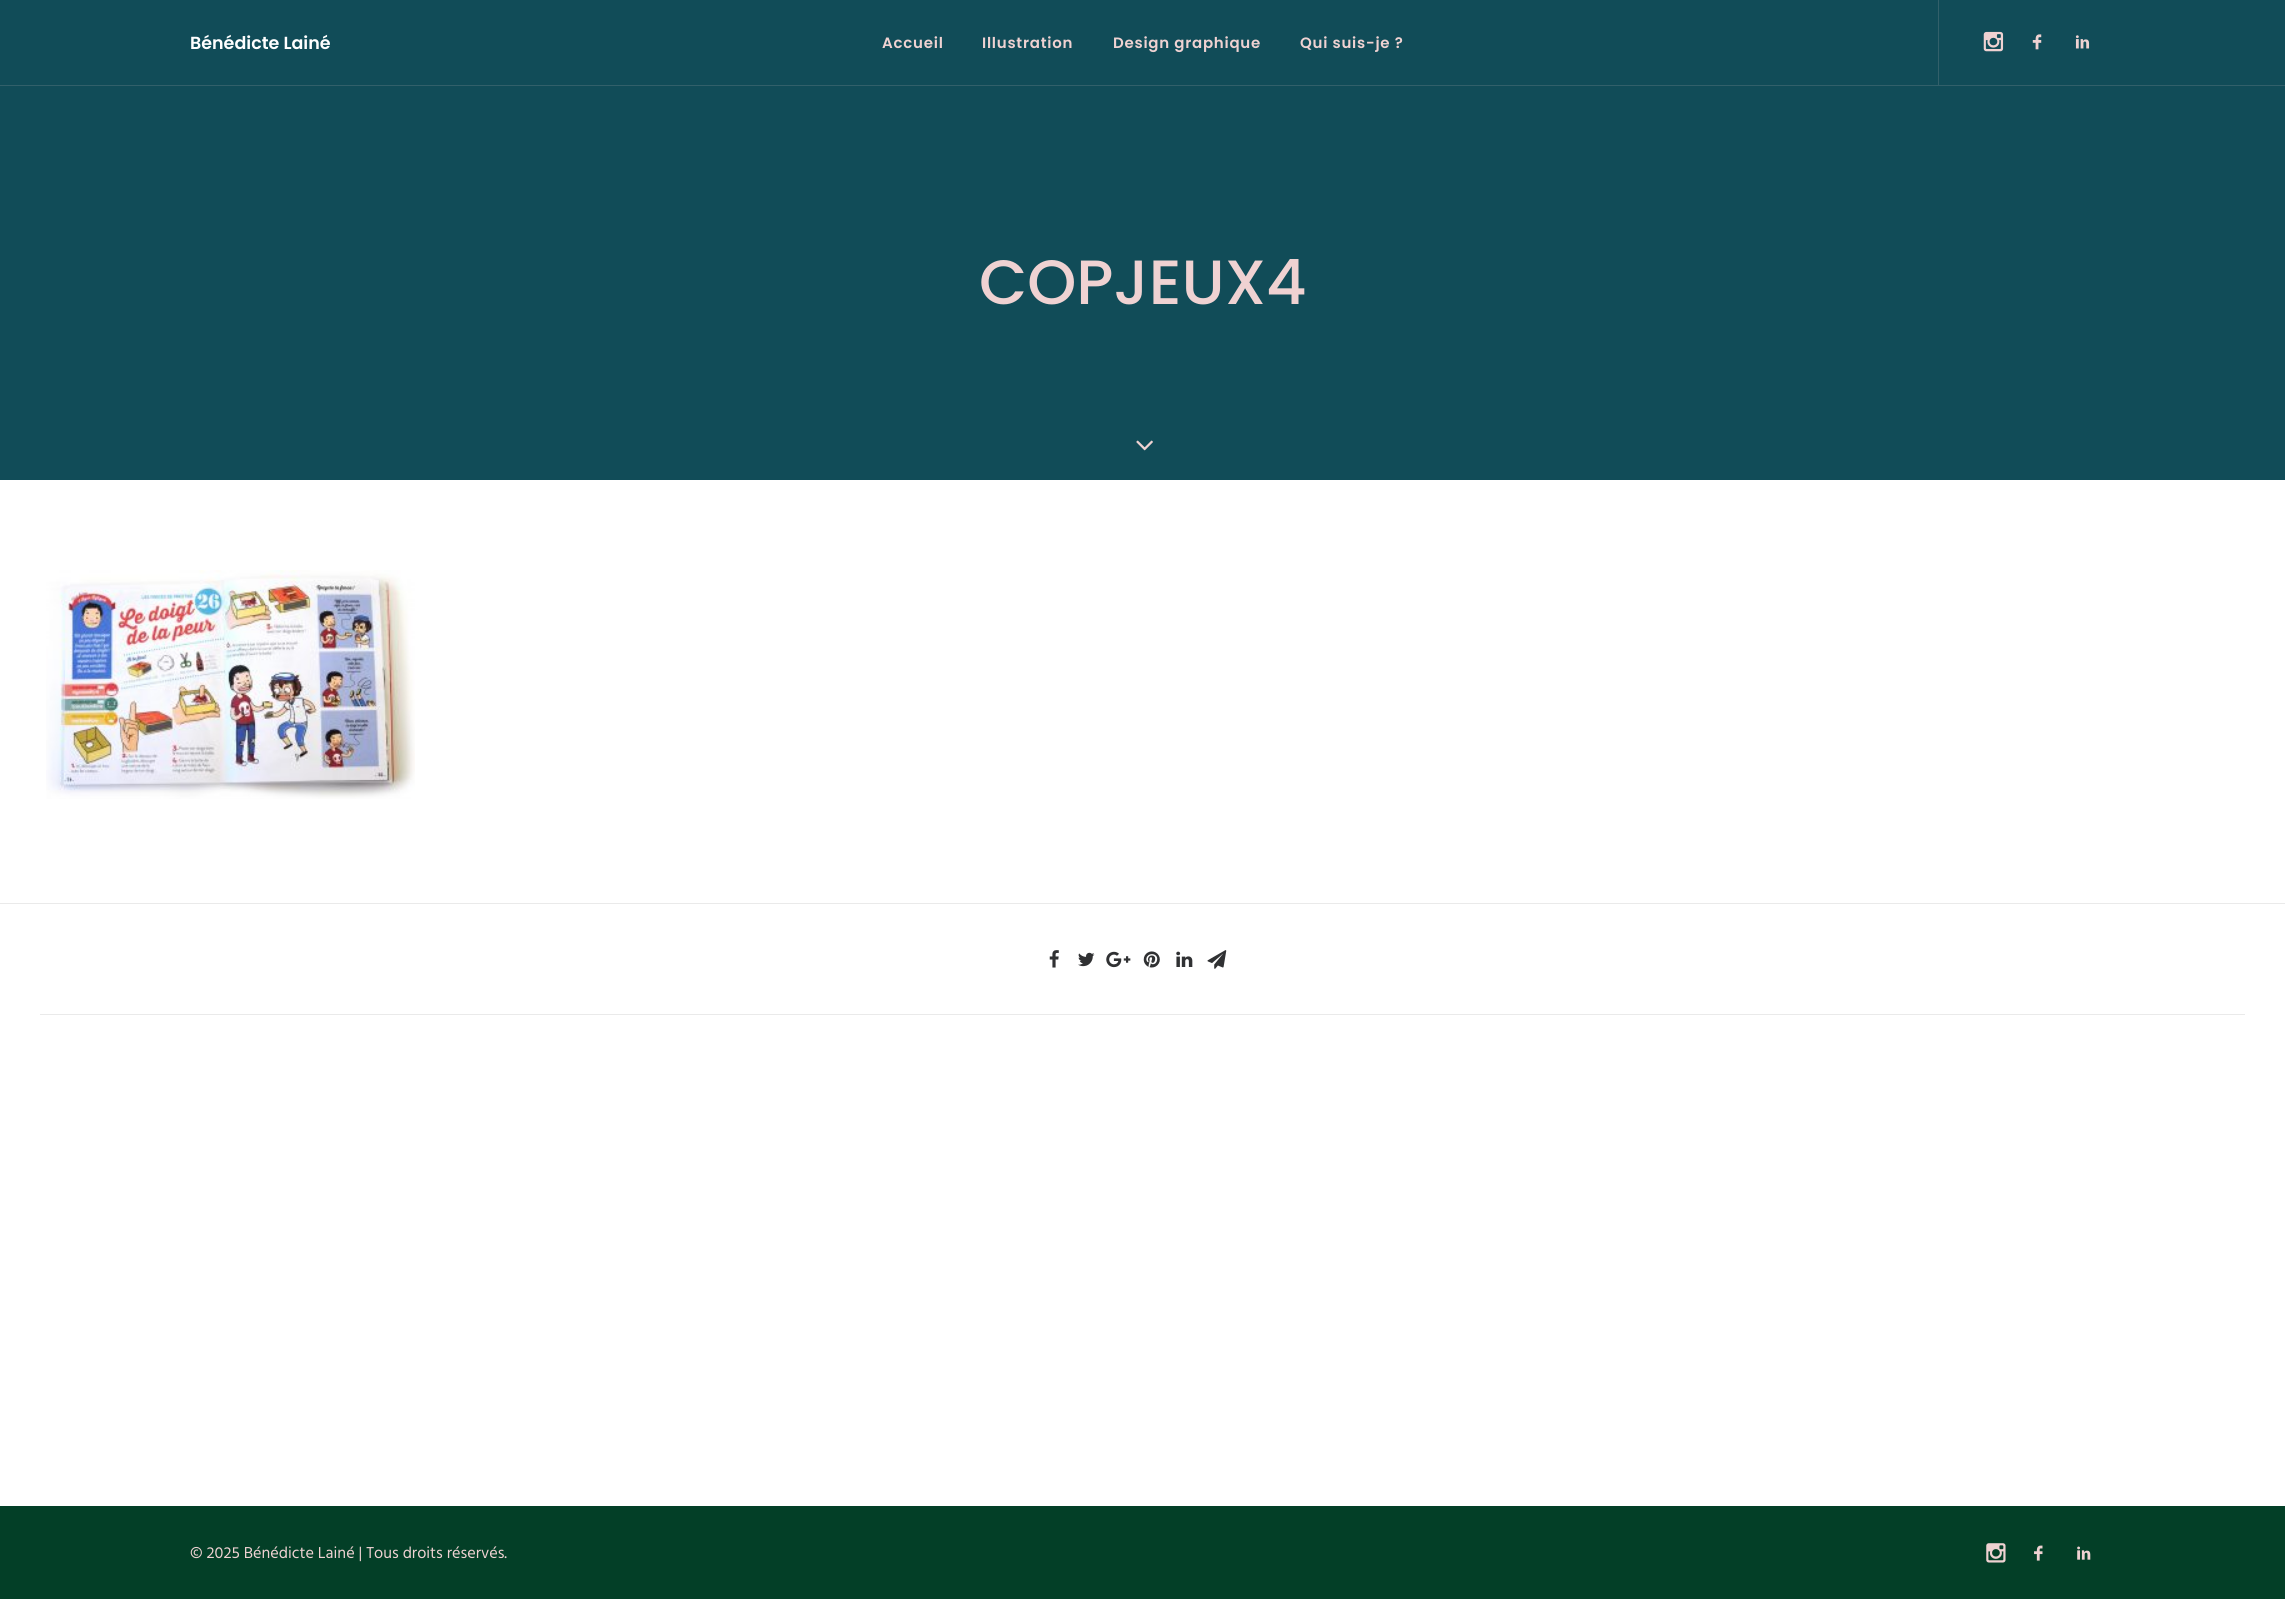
import math
import cairo

surface = cairo.ImageSurface(cairo.FORMAT_RGB24, 2285, 1599)
c = cairo.Context(surface)
options = cairo.FontOptions()
options.set_hint_metrics(cairo.HINT_METRICS_OFF)
options.set_hint_style(cairo.HINT_STYLE_NONE)
c.set_font_options(options)
c.set_miter_limit(4)
def C(code):
 c.set_source_rgb(*(v / 255 for v in bytes.fromhex(code[-6:])))
def F(family, size, italic, bold):
 c.select_font_face(family, cairo.FONT_SLANT_ITALIC if italic else cairo.FONT_SLANT_NORMAL, cairo.FONT_WEIGHT_BOLD if bold else cairo.FONT_WEIGHT_NORMAL)
 c.set_font_size(size)
def T(x, y, s):
 c.move_to(x, y)
 c.show_text(s)
def L(x, y, s, letter, word):
 c.move_to(x, y)
 for ch in s:
  c.show_text(ch)
  c.rel_move_to(letter + word * (ch == ' '), 0)
def R(x, y, w, h):
 c.rectangle(x, y, w, h)
 c.fill()
def I(path, x, y, w, h):
 c.save()
 c.set_source_surface(cairo.ImageSurface.create_from_png(path), x, y)
 c.rectangle(x, y, w, h)
 c.fill()
 c.restore()
C('ffffff')
c.paint()
C('114c58')
R(0,0,2285,480)
C('32606a')
R(0,85,2285,1)
F('Poppins SemiBold',17.5,0,0)
C('ffffff')
T(190,49,'Bénédicte Lainé')
F('Poppins SemiBold',15,0,0)
C('efd2d2')
L(882,48,'Accueil',.75,0)
L(982,48,'Illustration',.75,0)
L(1113,48,'Design graphique',.75,0)
L(1300,48,'Qui suis-je ?',.75,0)
C('32606a')
R(1938,0,1,85)
I('1.png',1983,31,21,21)
I('2.png',2032,34,10,16)
I('3.png',2075,35,15,14)
F('Poppins Medium',62.5,0,0)
C('efd2d2')
T(979,304,'COPJEUX4')
I('4.png',1136,440,17,11)
I('5.png',46,570,369,229)
C('eaeaea')
R(0,903,2285,1)
R(40,1014,2205,1)
I('6.png',1049,950,10,18)
I('7.png',1078,952,17,15)
I('8.png',1106,951,25,17)
I('9.png',1143,951,17,17)
I('10.png',1176,951,17,16)
I('11.png',1207,950,20,19)
C('033f27')
R(0,1506,2285,93)
F('Hind',16.25,0,0)
C('efd2d2')
T(190,1558,'© 2025 Bénédicte Lainé | Tous droits réservés.')
I('12.png',1986,1543,20,20)
I('13.png',2034,1545,9,16)
I('14.png',2077,1546,14,14)
surface.write_to_png('o.png')
